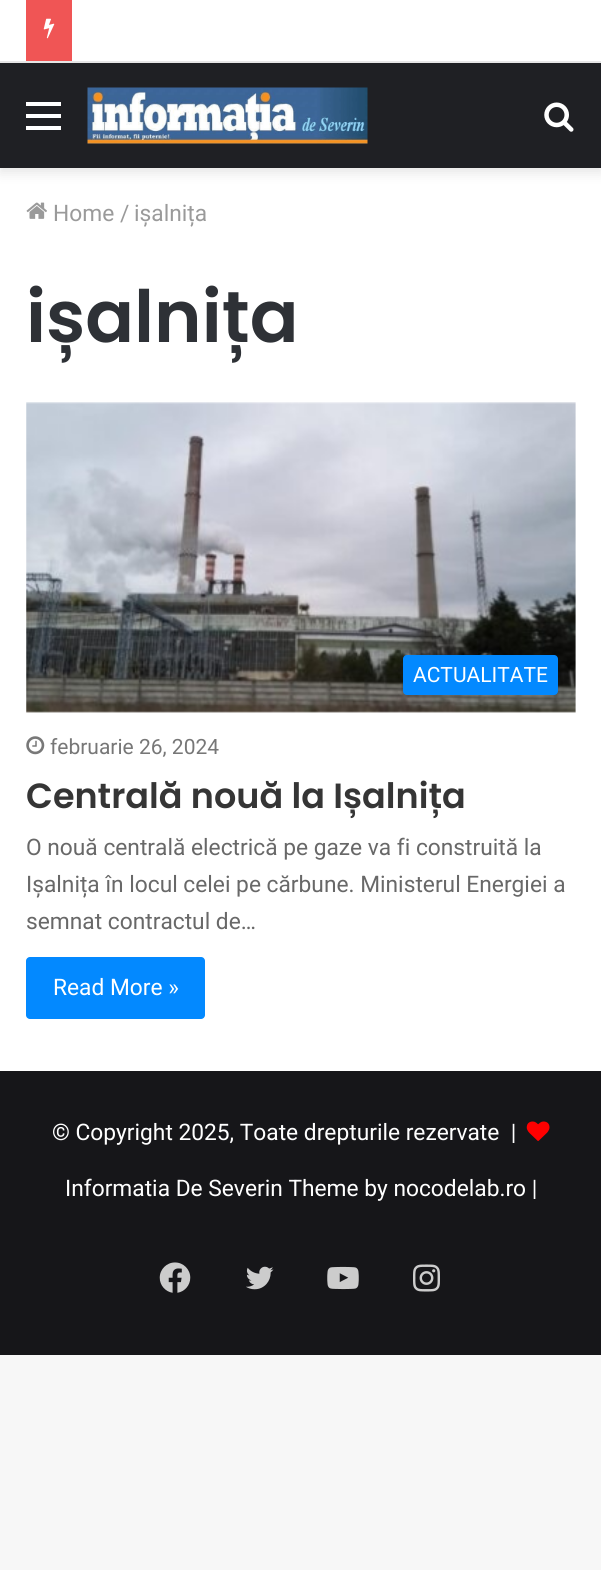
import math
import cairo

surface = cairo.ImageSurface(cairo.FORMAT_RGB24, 601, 1570)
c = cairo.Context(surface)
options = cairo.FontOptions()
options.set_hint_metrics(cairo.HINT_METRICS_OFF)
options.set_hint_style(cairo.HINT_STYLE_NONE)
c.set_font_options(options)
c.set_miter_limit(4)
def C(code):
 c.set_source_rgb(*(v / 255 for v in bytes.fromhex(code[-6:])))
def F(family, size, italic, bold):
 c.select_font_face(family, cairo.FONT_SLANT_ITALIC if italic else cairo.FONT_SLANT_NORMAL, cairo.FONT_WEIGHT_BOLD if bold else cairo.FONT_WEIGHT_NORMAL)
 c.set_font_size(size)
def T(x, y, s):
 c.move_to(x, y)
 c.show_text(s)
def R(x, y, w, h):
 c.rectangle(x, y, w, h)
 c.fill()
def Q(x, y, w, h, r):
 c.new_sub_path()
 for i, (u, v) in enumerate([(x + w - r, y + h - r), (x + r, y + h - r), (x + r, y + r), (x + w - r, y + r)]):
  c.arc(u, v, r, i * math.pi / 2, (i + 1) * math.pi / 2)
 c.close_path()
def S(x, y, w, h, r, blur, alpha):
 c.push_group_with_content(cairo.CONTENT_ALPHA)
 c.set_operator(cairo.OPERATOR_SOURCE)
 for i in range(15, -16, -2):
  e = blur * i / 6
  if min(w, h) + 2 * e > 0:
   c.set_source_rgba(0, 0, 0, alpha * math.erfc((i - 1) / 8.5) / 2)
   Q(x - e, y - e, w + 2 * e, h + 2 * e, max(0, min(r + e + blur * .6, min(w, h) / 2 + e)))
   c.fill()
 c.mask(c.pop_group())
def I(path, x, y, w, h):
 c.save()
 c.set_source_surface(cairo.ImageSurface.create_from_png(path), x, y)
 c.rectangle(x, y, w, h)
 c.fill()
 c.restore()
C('f7f7f7')
c.paint()
C('ffffff')
R(0,168,601,903)
C('000000')
S(0,68,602,105,0,6,.1)
C('ffffff')
R(0,0,601,61)
C('e6e6e6')
R(0,61,601,2)
C('f05555')
R(26,0,46,61)
I('1.png',43,18,12,21)
C('1f2024')
R(0,63,601,105)
C('ffffff')
R(26,114,35,4)
R(26,102,35,4)
R(26,126,35,4)
I('2.png',87,87,281,57)
I('3.png',544,102,30,30)
I('4.png',26,202,21,17)
F('Roboto',22.75,0,0)
C('9a9a9a')
T(53,221,'Home')
T(120,221,'/')
T(134,221,'ișalnița')
F('Poppins SemiBold',72,0,0)
C('2e3136')
T(26,342,'ișalnița')
I('5.png',26,402,550,311)
C('0389ff')
Q(403,655,155,40,4)
c.fill()
F('Roboto',21,0,0)
C('ffffff')
T(413,682,'ACTUALITATE')
I('6.png',26,736,19,19)
C('777777')
T(50,754,'februarie 26, 2024')
F('Poppins SemiBold',35,0,0)
C('353535')
T(26,808,'Centrală nouă la Ișalnița')
F('Roboto',22.75,0,0)
C('686868')
T(26,855,'O nouă centrală electrică pe gaze va fi construită la')
T(26,892,'Ișalnița în locul celei pe cărbune. Ministerul Energiei a')
T(26,929,'semnat contractul de…')
C('0389ff')
Q(26,957,179,62,4)
c.fill()
C('ffffff')
T(53,995,'Read More »')
C('161619')
R(0,1071,601,284)
C('ffffff')
T(52,1140,'© Copyright 2025, Toate drepturile rezervate  |')
I('7.png',526,1121,24,20)
T(65,1196,'Informatia De Severin Theme by nocodelab.ro |')
I('8.png',159,1262,32,31)
I('9.png',246,1266,28,24)
I('10.png',327,1266,32,24)
I('11.png',413,1264,27,28)
surface.write_to_png('o.png')
